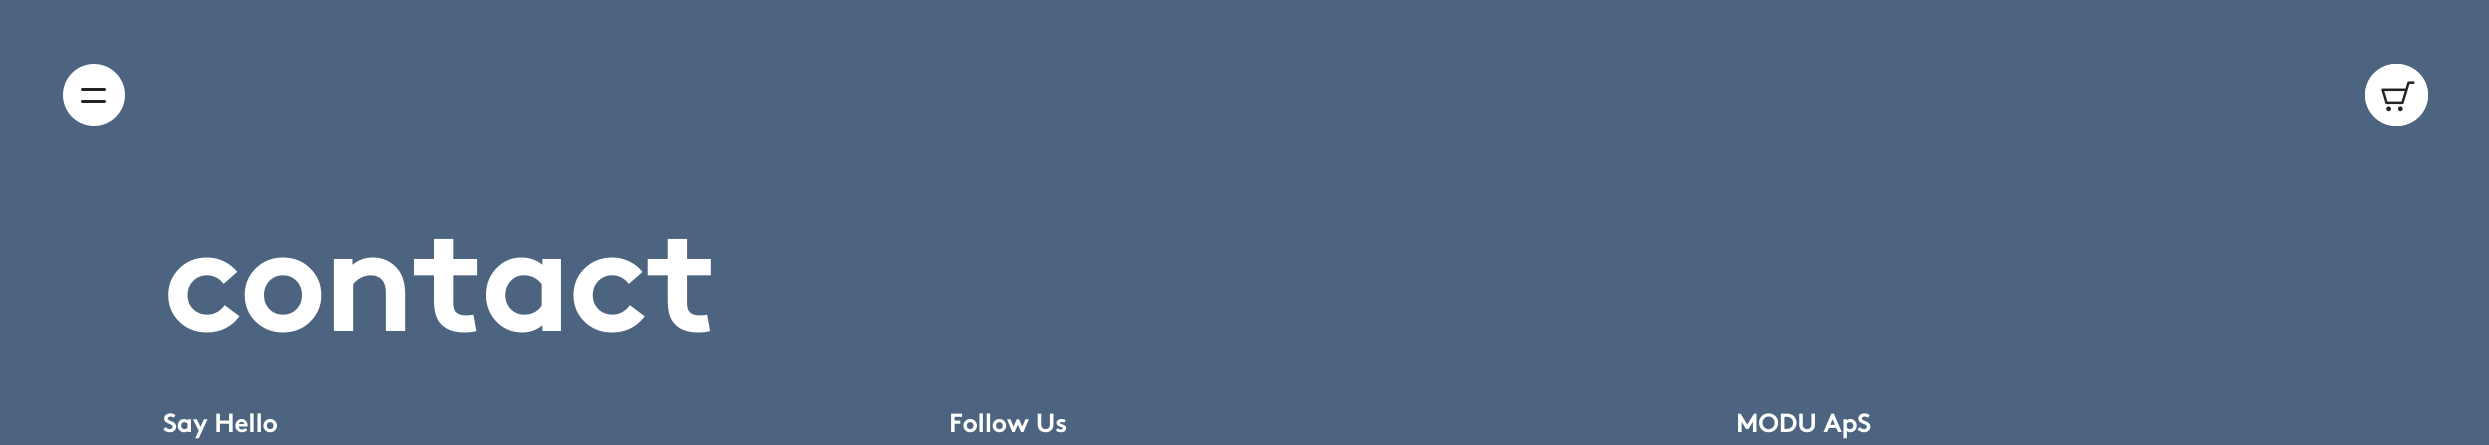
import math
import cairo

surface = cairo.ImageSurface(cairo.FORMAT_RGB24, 2489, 445)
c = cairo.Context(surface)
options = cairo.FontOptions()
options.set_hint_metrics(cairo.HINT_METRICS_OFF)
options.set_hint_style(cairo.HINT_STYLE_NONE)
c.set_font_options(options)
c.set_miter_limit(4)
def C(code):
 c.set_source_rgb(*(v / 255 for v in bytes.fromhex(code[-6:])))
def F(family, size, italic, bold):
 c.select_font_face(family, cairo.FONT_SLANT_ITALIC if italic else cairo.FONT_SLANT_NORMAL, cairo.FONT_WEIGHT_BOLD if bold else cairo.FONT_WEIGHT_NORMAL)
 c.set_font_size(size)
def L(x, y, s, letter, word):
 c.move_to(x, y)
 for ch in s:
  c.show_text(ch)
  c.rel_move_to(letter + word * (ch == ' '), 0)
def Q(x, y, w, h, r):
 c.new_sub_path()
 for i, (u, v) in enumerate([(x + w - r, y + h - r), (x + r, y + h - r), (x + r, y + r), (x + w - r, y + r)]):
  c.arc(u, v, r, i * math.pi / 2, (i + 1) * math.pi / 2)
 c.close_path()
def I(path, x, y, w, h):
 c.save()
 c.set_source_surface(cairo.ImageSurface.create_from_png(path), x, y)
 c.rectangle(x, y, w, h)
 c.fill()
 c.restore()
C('4d6481')
c.paint()
C('ffffff')
c.arc(94,95,31,0,2 * math.pi)
c.fill()
C('232323')
Q(81,88,25,3,1.5)
c.fill()
Q(81,100,25,3,1.5)
c.fill()
C('ffffff')
Q(2365,64,63,62,31)
c.fill()
c.new_path()
c.move_to(2396,64)
c.curve_to(2379,64,2365,78,2365,95)
c.curve_to(2365,112,2379,126,2396,126)
c.curve_to(2414,126,2428,112,2428,95)
c.curve_to(2428,78,2414,64,2396,64)
c.close_path()
c.fill()
I('1.png',2381,81,34,31)
F('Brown',148.5,0,1)
L(163,331,'contact',-3.75,0)
F('Brown',26.25,0,1)
L(163,432,'Say Hello',-.25,0)
L(949,432,'Follow Us',-.25,0)
L(1736,432,'MODU ApS',-.25,0)
surface.write_to_png('o.png')
